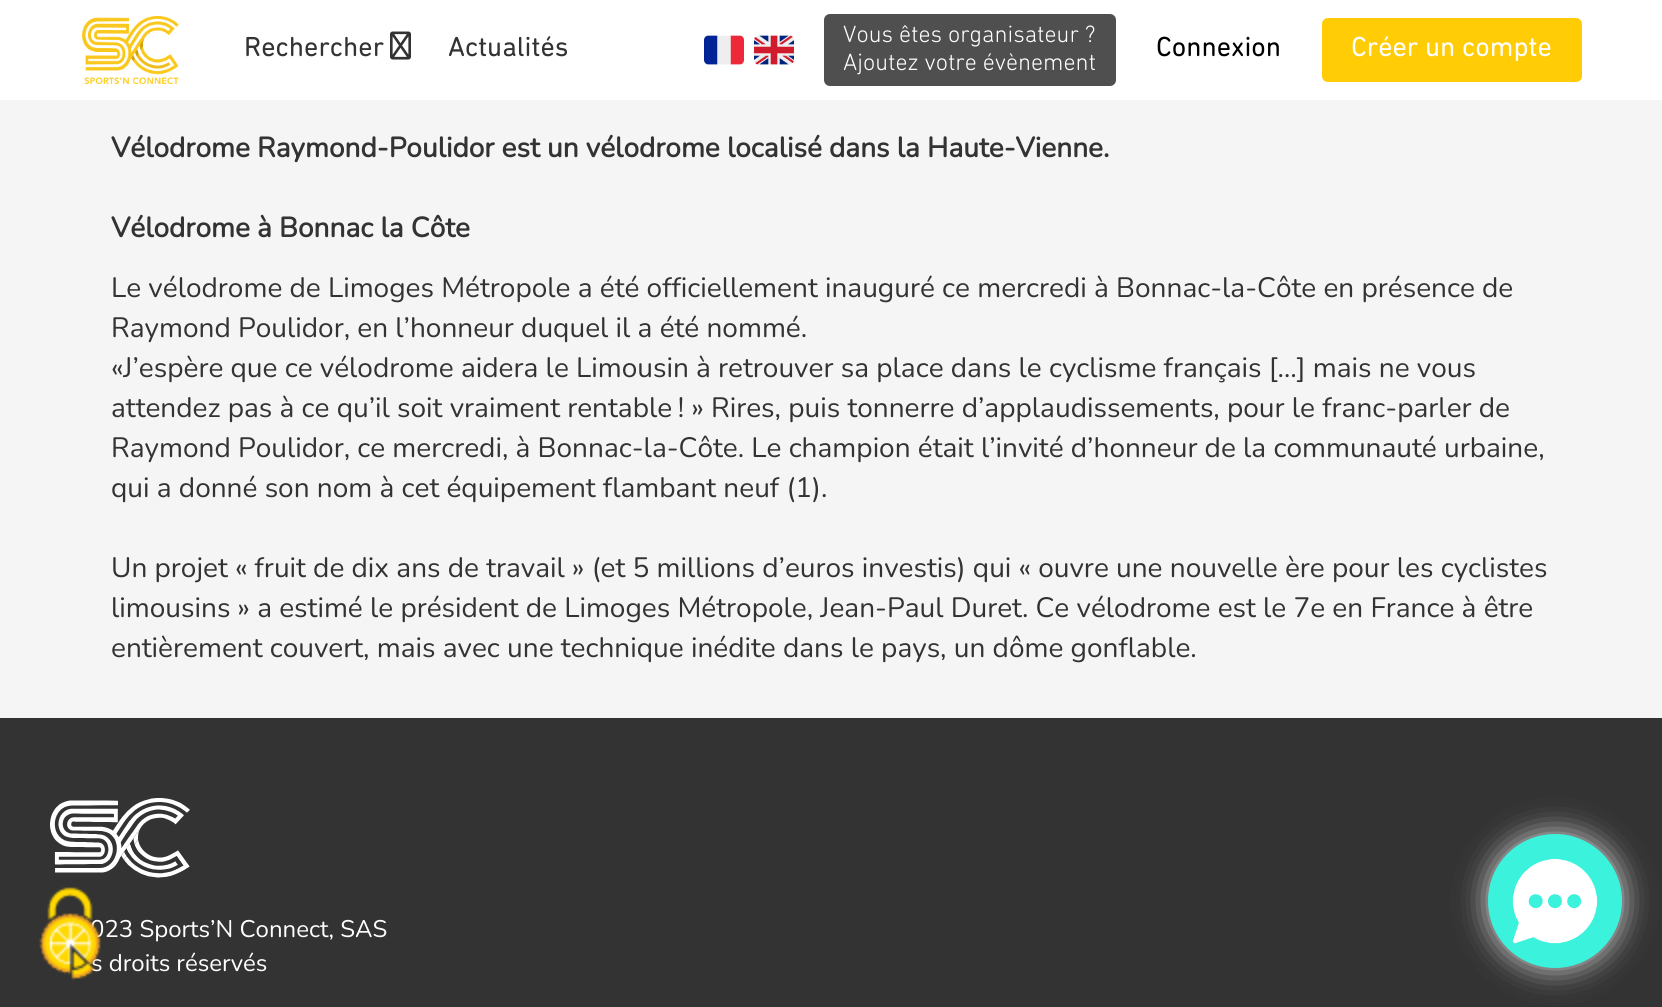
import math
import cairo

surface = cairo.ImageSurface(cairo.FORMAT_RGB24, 1662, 1007)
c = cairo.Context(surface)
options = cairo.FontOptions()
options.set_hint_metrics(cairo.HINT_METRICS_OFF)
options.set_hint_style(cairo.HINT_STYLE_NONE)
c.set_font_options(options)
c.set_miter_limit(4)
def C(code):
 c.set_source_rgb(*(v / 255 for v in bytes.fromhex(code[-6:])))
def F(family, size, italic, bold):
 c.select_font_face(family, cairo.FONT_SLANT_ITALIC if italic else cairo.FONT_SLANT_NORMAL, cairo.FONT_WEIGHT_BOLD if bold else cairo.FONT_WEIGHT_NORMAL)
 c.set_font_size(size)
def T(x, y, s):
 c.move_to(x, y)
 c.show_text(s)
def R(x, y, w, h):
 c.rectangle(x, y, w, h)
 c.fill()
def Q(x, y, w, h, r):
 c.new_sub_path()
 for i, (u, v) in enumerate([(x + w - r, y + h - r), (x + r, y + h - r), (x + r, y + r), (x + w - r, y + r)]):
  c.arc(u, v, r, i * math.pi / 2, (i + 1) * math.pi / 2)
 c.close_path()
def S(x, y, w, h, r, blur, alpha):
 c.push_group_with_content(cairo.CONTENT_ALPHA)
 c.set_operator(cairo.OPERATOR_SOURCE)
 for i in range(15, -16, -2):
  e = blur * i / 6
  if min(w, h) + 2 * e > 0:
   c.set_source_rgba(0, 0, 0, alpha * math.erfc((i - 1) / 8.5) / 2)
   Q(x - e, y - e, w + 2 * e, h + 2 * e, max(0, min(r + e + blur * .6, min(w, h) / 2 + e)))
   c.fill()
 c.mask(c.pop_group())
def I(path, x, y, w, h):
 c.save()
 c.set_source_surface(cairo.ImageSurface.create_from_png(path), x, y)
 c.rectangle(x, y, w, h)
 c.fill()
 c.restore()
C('f5f5f5')
c.paint()
C('ffffff')
R(0,0,1662,100)
I('1.png',81,16,98,68)
F('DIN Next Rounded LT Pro',28,0,0)
C('333333')
T(244,56,'Rechercher')
I('2.png',390,31,21,29)
T(448,56,'Actualités')
I('3.png',704,35,40,30)
I('4.png',754,35,40,30)
C('4f4f4f')
Q(824,14,292,72,6)
c.fill()
F('DIN Next Rounded LT Pro Light',24,0,0)
C('ffffff')
T(843,42,'Vous êtes organisateur ?')
T(843,70,'Ajoutez votre évènement')
F('DIN Next Rounded LT Pro',28,0,0)
C('000000')
T(1156,56,'Connexion')
C('ffcc06')
Q(1322,18,260,64,6)
c.fill()
C('ffffff')
T(1351,56,'Créer un compte')
F('Nunito',28,0,1)
C('333333')
T(111,157,'Vélodrome Raymond-Poulidor est un vélodrome localisé dans la Haute-Vienne.')
T(111,237,'Vélodrome à Bonnac la Côte')
F('Nunito ExtraLight',28,0,0)
T(111,297,'Le vélodrome de Limoges Métropole a été officiellement inauguré ce mercredi à Bonnac-la-Côte en présence de')
T(111,337,'Raymond Poulidor, en l’honneur duquel il a été nommé.')
T(111,377,'«J’espère que ce vélodrome aidera le Limousin à retrouver sa place dans le cyclisme français […] mais ne vous')
T(111,417,'attendez pas à ce qu’il soit vraiment rentable ! » Rires, puis tonnerre d’applaudissements, pour le franc-parler de')
T(111,457,'Raymond Poulidor, ce mercredi, à Bonnac-la-Côte. Le champion était l’invité d’honneur de la communauté urbaine,')
T(111,497,'qui a donné son nom à cet équipement flambant neuf (1).')
T(111,577,'Un projet « fruit de dix ans de travail » (et 5 millions d’euros investis) qui « ouvre une nouvelle ère pour les cyclistes')
T(111,617,'limousins » a estimé le président de Limoges Métropole, Jean-Paul Duret. Ce vélodrome est le 7e en France à être')
T(111,657,'entièrement couvert, mais avec une technique inédite dans le pays, un dôme gonflable.')
R(0,718,1662,289)
F('Nunito ExtraLight',24,0,0)
C('ffffff')
T(90,937,'023 Sports’N Connect, SAS')
T(91,971,'s droits réservés')
I('5.png',39,887,62,94)
I('6.png',50,798,140,80)
C('d7d7d7')
S(1488,834,134,134,67,15,1)
C('3bf2dc')
c.arc(1555,901,66,0,2 * math.pi)
c.fill_preserve()
c.stroke()
I('7.png',1512,858,86,86)
surface.write_to_png('o.png')
